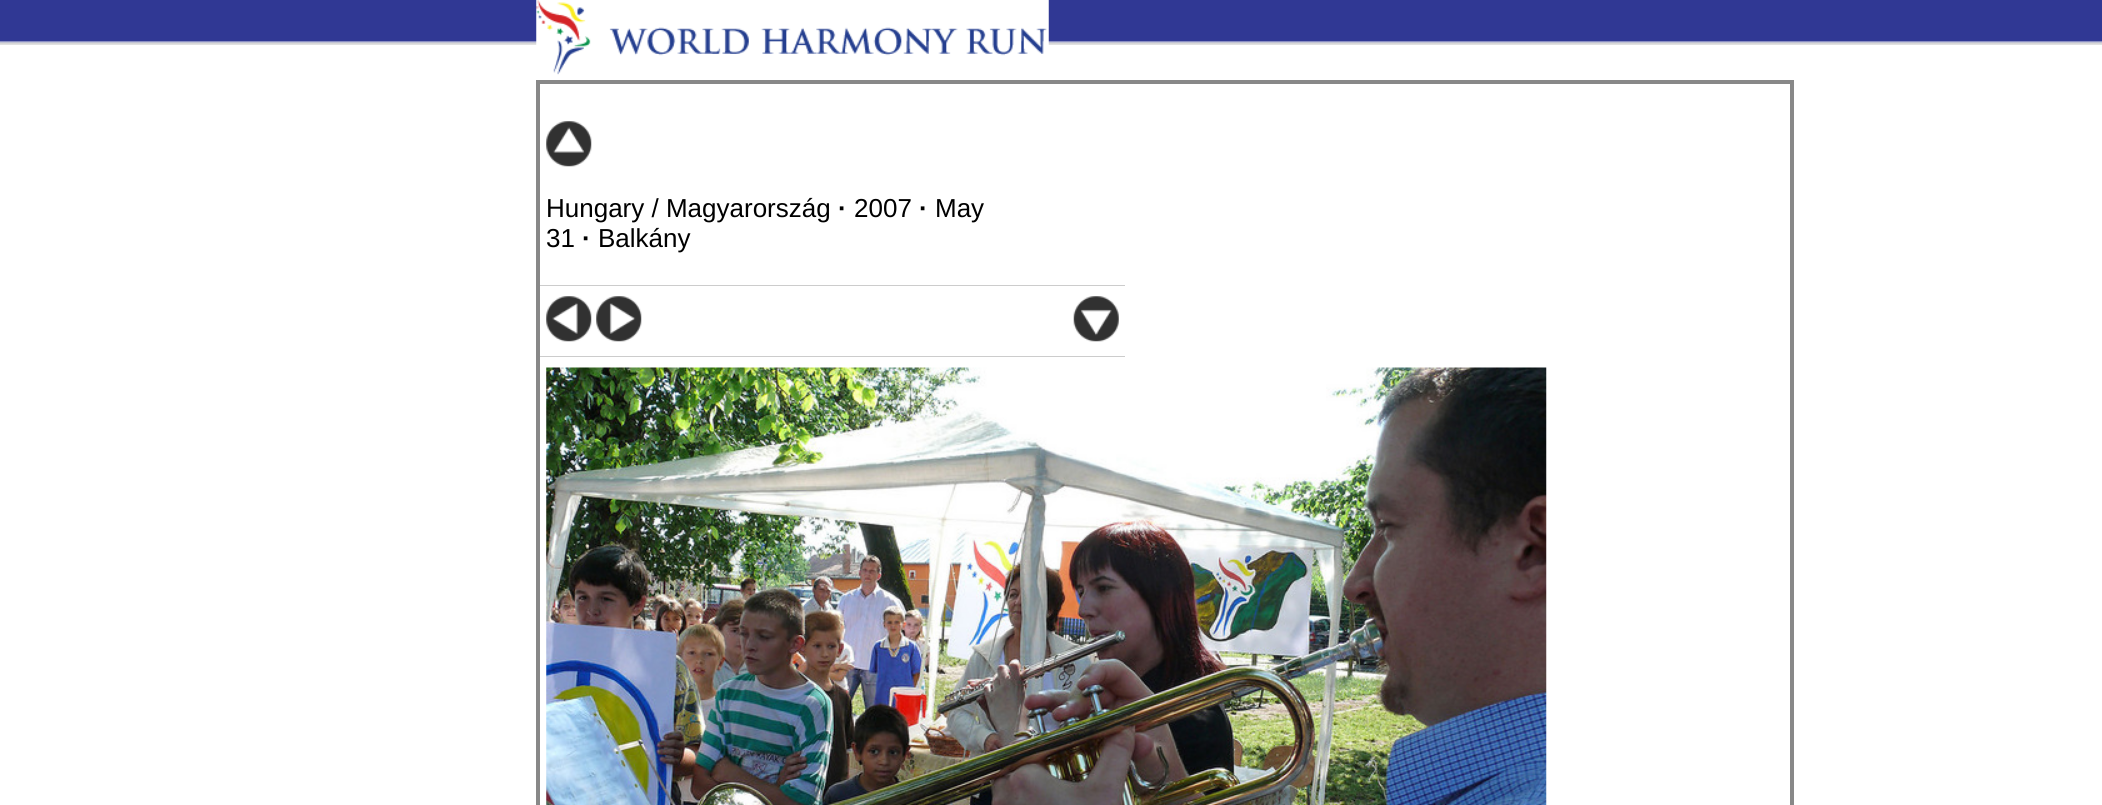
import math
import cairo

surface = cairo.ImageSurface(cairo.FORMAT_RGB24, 2102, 805)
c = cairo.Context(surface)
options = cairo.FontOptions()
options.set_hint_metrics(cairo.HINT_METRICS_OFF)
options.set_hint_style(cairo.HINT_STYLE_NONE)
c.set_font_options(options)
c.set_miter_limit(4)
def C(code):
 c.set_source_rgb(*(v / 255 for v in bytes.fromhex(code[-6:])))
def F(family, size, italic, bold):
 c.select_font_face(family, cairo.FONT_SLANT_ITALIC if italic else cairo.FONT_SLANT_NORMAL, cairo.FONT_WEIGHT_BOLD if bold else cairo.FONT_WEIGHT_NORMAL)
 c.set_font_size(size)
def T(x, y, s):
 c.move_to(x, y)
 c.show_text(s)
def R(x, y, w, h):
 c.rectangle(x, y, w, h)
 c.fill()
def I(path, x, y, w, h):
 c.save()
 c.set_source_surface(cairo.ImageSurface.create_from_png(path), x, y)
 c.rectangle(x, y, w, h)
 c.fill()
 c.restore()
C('ffffff')
c.paint()
I('1.png',0,0,2102,45)
I('2.png',536,0,513,75)
c.rectangle(538,82,1254,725)
C('888888')
c.set_line_width(4)
c.stroke()
I('3.png',546,121,46,46)
F('Liberation Sans',26,0,0)
C('000000')
T(546,217,'Hungary / Magyarország')
F('Liberation Sans',26,0,1)
T(838,217,'·')
F('Liberation Sans',26,0,0)
T(854,217,'2007')
F('Liberation Sans',26,0,1)
T(919,217,'·')
F('Liberation Sans',26,0,0)
T(935,217,'May')
T(546,247,'31')
F('Liberation Sans',26,0,1)
T(582,247,'·')
F('Liberation Sans',26,0,0)
T(598,247,'Balkány')
C('cccccc')
R(540,285,585,1)
I('4.png',546,296,46,46)
I('5.png',596,296,46,46)
I('6.png',1073,296,46,46)
R(540,356,585,1)
I('7.png',546,367,1001,438)
surface.write_to_png('o.png')
